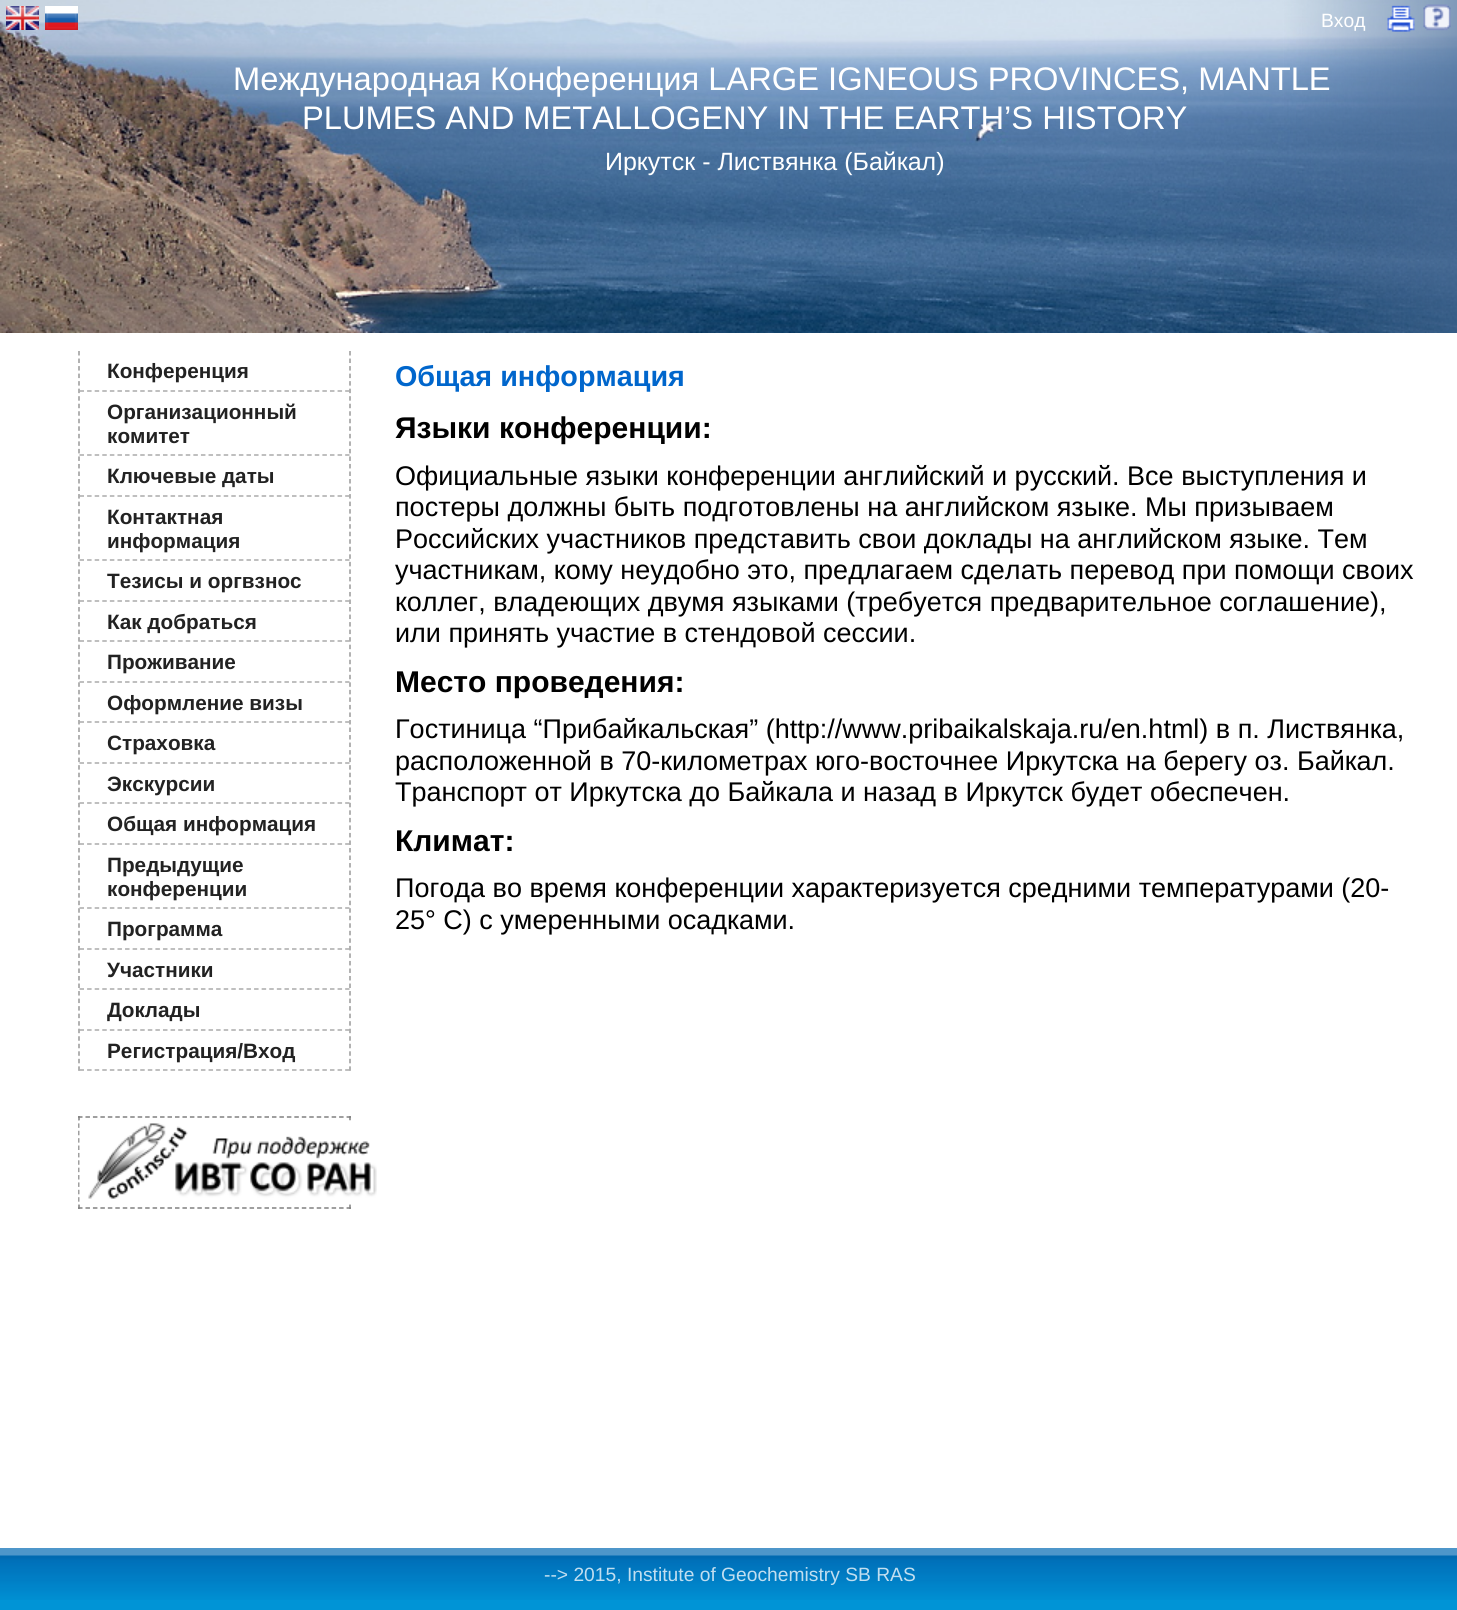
import math
import cairo

surface = cairo.ImageSurface(cairo.FORMAT_RGB24, 1457, 1610)
c = cairo.Context(surface)
options = cairo.FontOptions()
options.set_hint_metrics(cairo.HINT_METRICS_OFF)
options.set_hint_style(cairo.HINT_STYLE_NONE)
c.set_font_options(options)
c.set_miter_limit(4)
def C(code):
 c.set_source_rgb(*(v / 255 for v in bytes.fromhex(code[-6:])))
def F(family, size, italic, bold):
 c.select_font_face(family, cairo.FONT_SLANT_ITALIC if italic else cairo.FONT_SLANT_NORMAL, cairo.FONT_WEIGHT_BOLD if bold else cairo.FONT_WEIGHT_NORMAL)
 c.set_font_size(size)
def T(x, y, s):
 c.move_to(x, y)
 c.show_text(s)
def R(x, y, w, h):
 c.rectangle(x, y, w, h)
 c.fill()
def I(path, x, y, w, h):
 c.save()
 c.set_source_surface(cairo.ImageSurface.create_from_png(path), x, y)
 c.rectangle(x, y, w, h)
 c.fill()
 c.restore()
C('ffffff')
c.paint()
C('4b6e98')
R(1284,0,173,333)
I('1.png',0,0,1457,333)
I('2.png',6,6,33,24)
I('3.png',45,6,33,24)
F('Liberation Sans',19.25,0,0)
C('ffffff')
T(1321,27,'Вход')
I('4.png',1387,5,28,27)
I('5.png',1423,4,28,27)
F('Liberation Sans',32.65,0,0)
T(233,90,'Международная Конференция LARGE IGNEOUS PROVINCES, MANTLE')
T(302,129,'PLUMES AND METALLOGENY IN THE EARTH’S HISTORY')
F('Liberation Sans',25,0,0)
T(605,170,'Иркутск - Листвянка (Байкал)')
c.new_path()
c.move_to(350,351)
c.line_to(350,1071)
C('999999')
c.set_line_width(1.5)
c.set_dash([4.5,3.03])
c.stroke()
c.new_path()
c.move_to(79,351)
c.line_to(79,1071)
c.stroke()
c.new_path()
c.move_to(79.5,391)
c.line_to(349.5,391)
C('aaaaaa')
c.set_dash([4.5,3.09])
c.stroke()
F('Liberation Sans',20.75,0,1)
C('222222')
T(107,378,'Конференция')
c.new_path()
c.move_to(79.5,455)
c.line_to(349.5,455)
C('aaaaaa')
c.stroke()
C('222222')
T(107,419,'Организационный')
T(107,443,'комитет')
c.new_path()
c.move_to(79.5,496)
c.line_to(349.5,496)
C('aaaaaa')
c.stroke()
C('222222')
T(107,483,'Ключевые даты')
c.new_path()
c.move_to(79.5,560)
c.line_to(349.5,560)
C('aaaaaa')
c.stroke()
C('222222')
T(107,524,'Контактная')
T(107,548,'информация')
c.new_path()
c.move_to(79.5,601)
c.line_to(349.5,601)
C('aaaaaa')
c.stroke()
C('222222')
T(107,588,'Тезисы и оргвзнос')
c.new_path()
c.move_to(79.5,641)
c.line_to(349.5,641)
C('aaaaaa')
c.stroke()
C('222222')
T(107,629,'Как добраться')
c.new_path()
c.move_to(79.5,682)
c.line_to(349.5,682)
C('aaaaaa')
c.stroke()
C('222222')
T(107,669,'Проживание')
c.new_path()
c.move_to(79.5,722)
c.line_to(349.5,722)
C('aaaaaa')
c.stroke()
C('222222')
T(107,710,'Оформление визы')
c.new_path()
c.move_to(79.5,763)
c.line_to(349.5,763)
C('aaaaaa')
c.stroke()
C('222222')
T(107,750,'Страховка')
c.new_path()
c.move_to(79.5,803)
c.line_to(349.5,803)
C('aaaaaa')
c.stroke()
C('222222')
T(107,791,'Экскурсии')
c.new_path()
c.move_to(79.5,844)
c.line_to(349.5,844)
C('aaaaaa')
c.stroke()
C('222222')
T(107,831,'Общая информация')
c.new_path()
c.move_to(79.5,908)
c.line_to(349.5,908)
C('aaaaaa')
c.stroke()
C('222222')
T(107,872,'Предыдущие')
T(107,896,'конференции')
c.new_path()
c.move_to(79.5,949)
c.line_to(349.5,949)
C('aaaaaa')
c.stroke()
C('222222')
T(107,936,'Программа')
c.new_path()
c.move_to(79.5,989)
c.line_to(349.5,989)
C('aaaaaa')
c.stroke()
C('222222')
T(107,977,'Участники')
c.new_path()
c.move_to(79.5,1030)
c.line_to(349.5,1030)
C('aaaaaa')
c.stroke()
C('222222')
T(107,1017,'Доклады')
c.new_path()
c.move_to(79.5,1070)
c.line_to(349.5,1070)
C('aaaaaa')
c.stroke()
C('222222')
T(107,1058,'Регистрация/Вход')
c.new_path()
c.move_to(78,1117)
c.line_to(351,1117)
C('808080')
c.set_dash([4.5,2.96])
c.stroke()
c.new_path()
c.move_to(350,1116)
c.line_to(350,1209)
c.set_dash([4.5,2.88])
c.stroke()
c.new_path()
c.move_to(78,1208)
c.line_to(351,1208)
c.set_dash([4.5,2.96])
c.stroke()
c.new_path()
c.move_to(79,1116)
c.line_to(79,1209)
c.set_dash([4.5,2.88])
c.stroke()
I('6.png',79,1120,298,82)
F('Liberation Sans',28.75,0,1)
C('0066cc')
T(395,386,'Общая информация')
F('Liberation Sans',30,0,1)
C('000000')
T(395,438,'Языки конференции:')
F('Liberation Sans',27,0,0)
T(395,485,'Официальные языки конференции английский и русский. Все выступления и')
T(395,516,'постеры должны быть подготовлены на английском языке. Мы призываем')
T(395,548,'Российских участников представить свои доклады на английском языке. Тем')
T(395,579,'участникам, кому неудобно это, предлагаем сделать перевод при помощи своих')
T(395,611,'коллег, владеющих двумя языками (требуется предварительное соглашение),')
T(395,642,'или принять участие в стендовой сессии.')
F('Liberation Sans',30,0,1)
T(395,692,'Место проведения:')
F('Liberation Sans',27,0,0)
T(395,738,'Гостиница “Прибайкальская” (http://www.pribaikalskaja.ru/en.html) в п. Листвянка,')
T(395,770,'расположенной в 70-километрах юго-восточнее Иркутска на берегу оз. Байкал.')
T(395,801,'Транспорт от Иркутска до Байкала и назад в Иркутск будет обеспечен.')
F('Liberation Sans',30,0,1)
T(395,851,'Климат:')
F('Liberation Sans',27,0,0)
T(395,897,'Погода во время конференции характеризуется средними температурами (20-')
T(395,929,'25° C) с умеренными осадками.')
C('0094d6')
R(0,1600,1457,10)
I('7.png',0,1548,1457,52)
F('Liberation Sans',19.25,0,0)
C('c1def0')
T(544,1581,'--> 2015, Institute of Geochemistry SB RAS')
surface.write_to_png('o.png')
